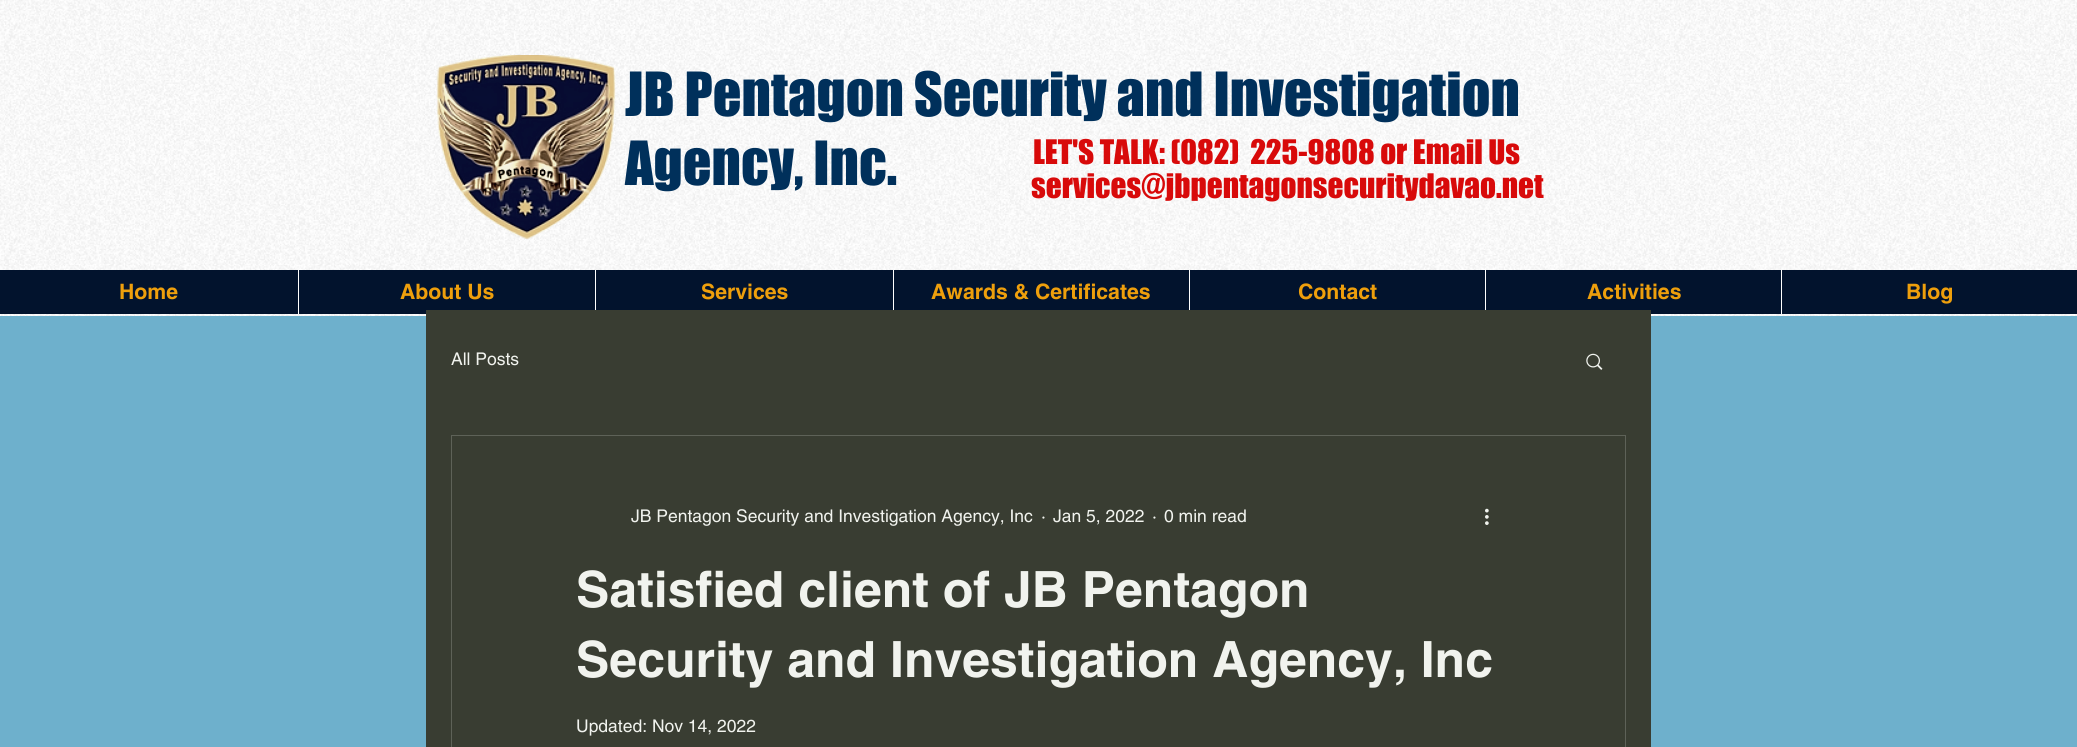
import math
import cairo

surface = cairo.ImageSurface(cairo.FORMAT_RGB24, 2077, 747)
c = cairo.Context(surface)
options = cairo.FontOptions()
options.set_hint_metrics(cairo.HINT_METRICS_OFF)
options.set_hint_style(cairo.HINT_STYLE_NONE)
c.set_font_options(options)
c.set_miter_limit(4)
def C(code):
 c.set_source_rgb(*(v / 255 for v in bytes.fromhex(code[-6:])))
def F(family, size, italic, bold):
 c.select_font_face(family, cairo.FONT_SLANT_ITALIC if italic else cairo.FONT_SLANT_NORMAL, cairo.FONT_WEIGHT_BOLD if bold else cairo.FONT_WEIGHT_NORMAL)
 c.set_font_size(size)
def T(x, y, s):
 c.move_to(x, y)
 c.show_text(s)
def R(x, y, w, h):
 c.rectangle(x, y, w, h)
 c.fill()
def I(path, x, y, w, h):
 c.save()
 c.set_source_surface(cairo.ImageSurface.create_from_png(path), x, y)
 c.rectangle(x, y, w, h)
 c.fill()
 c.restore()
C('6eb0cc')
c.paint()
C('ffffff')
R(0,0,2077,316)
I('1.png',0,0,2077,316)
I('2.png',436,55,180,184)
F('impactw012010',56.25,0,0)
C('00305b')
T(625,116,'JB Pentagon Security and Investigation')
T(625,185,'Agency, Inc.')
F('impactw012010',31.25,0,0)
C('d80a0a')
T(1033,164,'LET\'S TALK: (082)  225-9808 or Email Us')
T(1031,198,'services@jbpentagonsecuritydavao.net')
C('02132d')
R(0,270,2077,44)
F('helvetica',21.25,0,1)
C('ee9f0c')
T(119,299,'Home')
C('ffffff')
R(298,270,1,44)
C('ee9f0c')
T(400,299,'About Us')
C('ffffff')
R(595,270,1,44)
C('ee9f0c')
T(701,299,'Services')
C('ffffff')
R(893,270,1,44)
C('ee9f0c')
T(931,299,'Awards & Certificates')
C('ffffff')
R(1189,270,1,44)
C('ee9f0c')
T(1298,299,'Contact')
C('ffffff')
R(1485,270,1,44)
C('ee9f0c')
T(1587,299,'Activities')
C('ffffff')
R(1781,270,1,44)
C('ee9f0c')
T(1906,299,'Blog')
C('393d32')
R(426,310,1225,437)
F('helvetica',17.5,0,0)
C('f1f3ee')
T(451,365,'All Posts')
I('3.png',1586,353,17,17)
c.rectangle(451.5,435.5,1174,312)
C('5e6258')
c.set_line_width(1)
c.stroke()
C('f1f3ee')
T(631,522,'JB Pentagon Security and Investigation Agency, Inc')
T(1041,522,'·')
T(1053,522,'Jan 5, 2022')
T(1152,522,'·')
T(1164,522,'0 min read')
I('4.png',1485,508,4,17)
F('helvetica',50,0,1)
T(576,607,'Satisfied client of JB Pentagon')
T(576,677,'Security and Investigation Agency, Inc')
F('helvetica',17.5,0,0)
T(576,732,'Updated: Nov 14, 2022')
surface.write_to_png('o.png')
